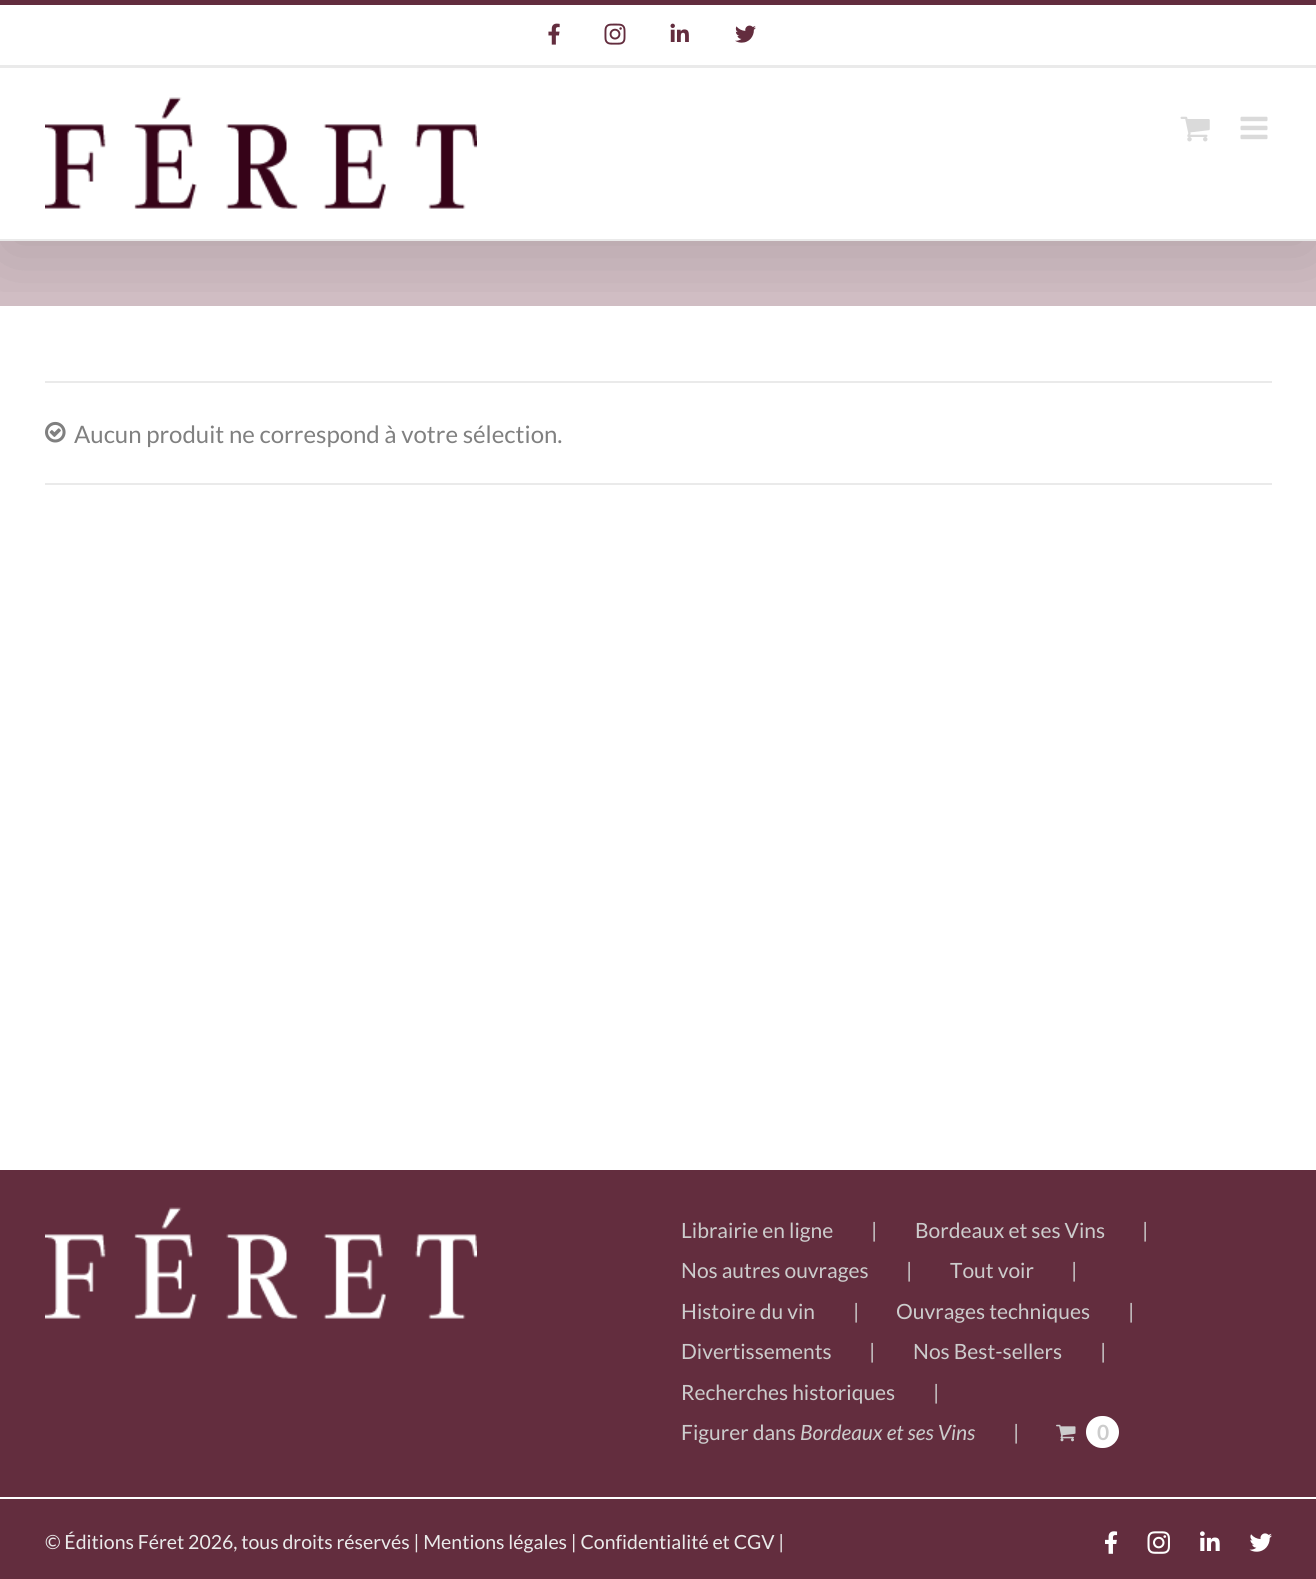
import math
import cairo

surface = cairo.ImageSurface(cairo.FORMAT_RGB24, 1316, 1579)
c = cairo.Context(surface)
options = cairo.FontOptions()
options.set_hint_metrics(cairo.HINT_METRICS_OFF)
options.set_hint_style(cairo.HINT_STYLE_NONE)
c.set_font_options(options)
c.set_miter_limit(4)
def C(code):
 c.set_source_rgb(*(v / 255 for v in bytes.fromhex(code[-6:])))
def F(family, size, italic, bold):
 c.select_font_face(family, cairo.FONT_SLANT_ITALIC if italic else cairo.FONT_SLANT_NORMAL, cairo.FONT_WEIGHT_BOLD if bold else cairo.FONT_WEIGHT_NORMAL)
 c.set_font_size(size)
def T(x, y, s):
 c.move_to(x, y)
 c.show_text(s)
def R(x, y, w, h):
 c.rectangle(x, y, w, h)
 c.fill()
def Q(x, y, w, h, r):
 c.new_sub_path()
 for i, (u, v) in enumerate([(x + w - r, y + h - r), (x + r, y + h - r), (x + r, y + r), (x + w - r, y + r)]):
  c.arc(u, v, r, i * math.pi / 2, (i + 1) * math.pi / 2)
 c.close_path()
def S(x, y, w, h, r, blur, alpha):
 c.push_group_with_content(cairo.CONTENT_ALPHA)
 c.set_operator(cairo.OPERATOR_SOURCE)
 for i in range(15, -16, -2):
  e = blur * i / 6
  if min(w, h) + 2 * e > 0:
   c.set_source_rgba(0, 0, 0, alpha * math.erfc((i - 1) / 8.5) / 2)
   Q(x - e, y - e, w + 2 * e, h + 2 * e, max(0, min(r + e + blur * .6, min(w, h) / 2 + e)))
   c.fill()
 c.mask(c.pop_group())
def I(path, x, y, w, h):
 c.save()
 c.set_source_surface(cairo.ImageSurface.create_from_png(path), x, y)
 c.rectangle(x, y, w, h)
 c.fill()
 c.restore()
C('ffffff')
c.paint()
C('d0bdc3')
R(0,241,1316,65)
c.save()
c.rectangle(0,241,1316,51)
c.clip()
C('000000')
S(3,18,1311,234,0,37.5,.14)
c.restore()
C('632d3e')
R(0,0,1316,5)
C('eaeaea')
R(0,65,1316,3)
I('1.png',548,23,12,22)
I('2.png',604,23,22,22)
I('3.png',670,23,19,19)
I('4.png',735,25,21,18)
R(0,239,1316,2)
I('5.png',45,97,432,112)
I('6.png',1180,116,30,26)
I('7.png',1240,116,28,24)
R(45,381,1227,2)
R(45,483,1227,2)
I('8.png',45,421,21,22)
F('Lato',24,0,0)
C('808080')
T(74,443,'Aucun produit ne correspond à votre sélection.')
C('632d3e')
R(0,1170,1316,327)
I('9.png',45,1207,432,112)
F('Lato',21,0,0)
C('cccccc')
T(681,1238,'Librairie en ligne')
T(871,1238,'|')
T(915,1238,'Bordeaux et ses Vins')
T(1142,1238,'|')
T(681,1278,'Nos autres ouvrages')
T(906,1278,'|')
T(950,1278,'Tout voir')
T(1071,1278,'|')
T(681,1319,'Histoire du vin')
T(853,1319,'|')
T(896,1319,'Ouvrages techniques')
T(1128,1319,'|')
T(681,1359,'Divertissements')
T(869,1359,'|')
T(913,1359,'Nos Best-sellers')
T(1100,1359,'|')
T(681,1400,'Recherches historiques')
T(933,1400,'|')
T(681,1440,'Figurer dans')
F('Lato',21,1,0)
T(800,1440,'Bordeaux et ses Vins')
F('Lato',21,0,0)
T(1013,1440,'|')
I('10.png',1056,1424,20,18)
C('ffffff')
Q(1086,1416,33,32,16)
c.fill()
F('Lato',21,0,1)
C('cccccc')
T(1097,1440,'0')
C('632d3e')
R(0,1499,1316,80)
F('Lato',19.5,0,0)
C('eaeaea')
T(45,1549,'© Éditions Féret 2026, tous droits réservés | Mentions légales | Confidentialité et CGV |')
I('11.png',1105,1531,13,23)
I('12.png',1147,1531,23,23)
I('13.png',1200,1531,20,20)
I('14.png',1249,1533,23,19)
surface.write_to_png('o.png')
